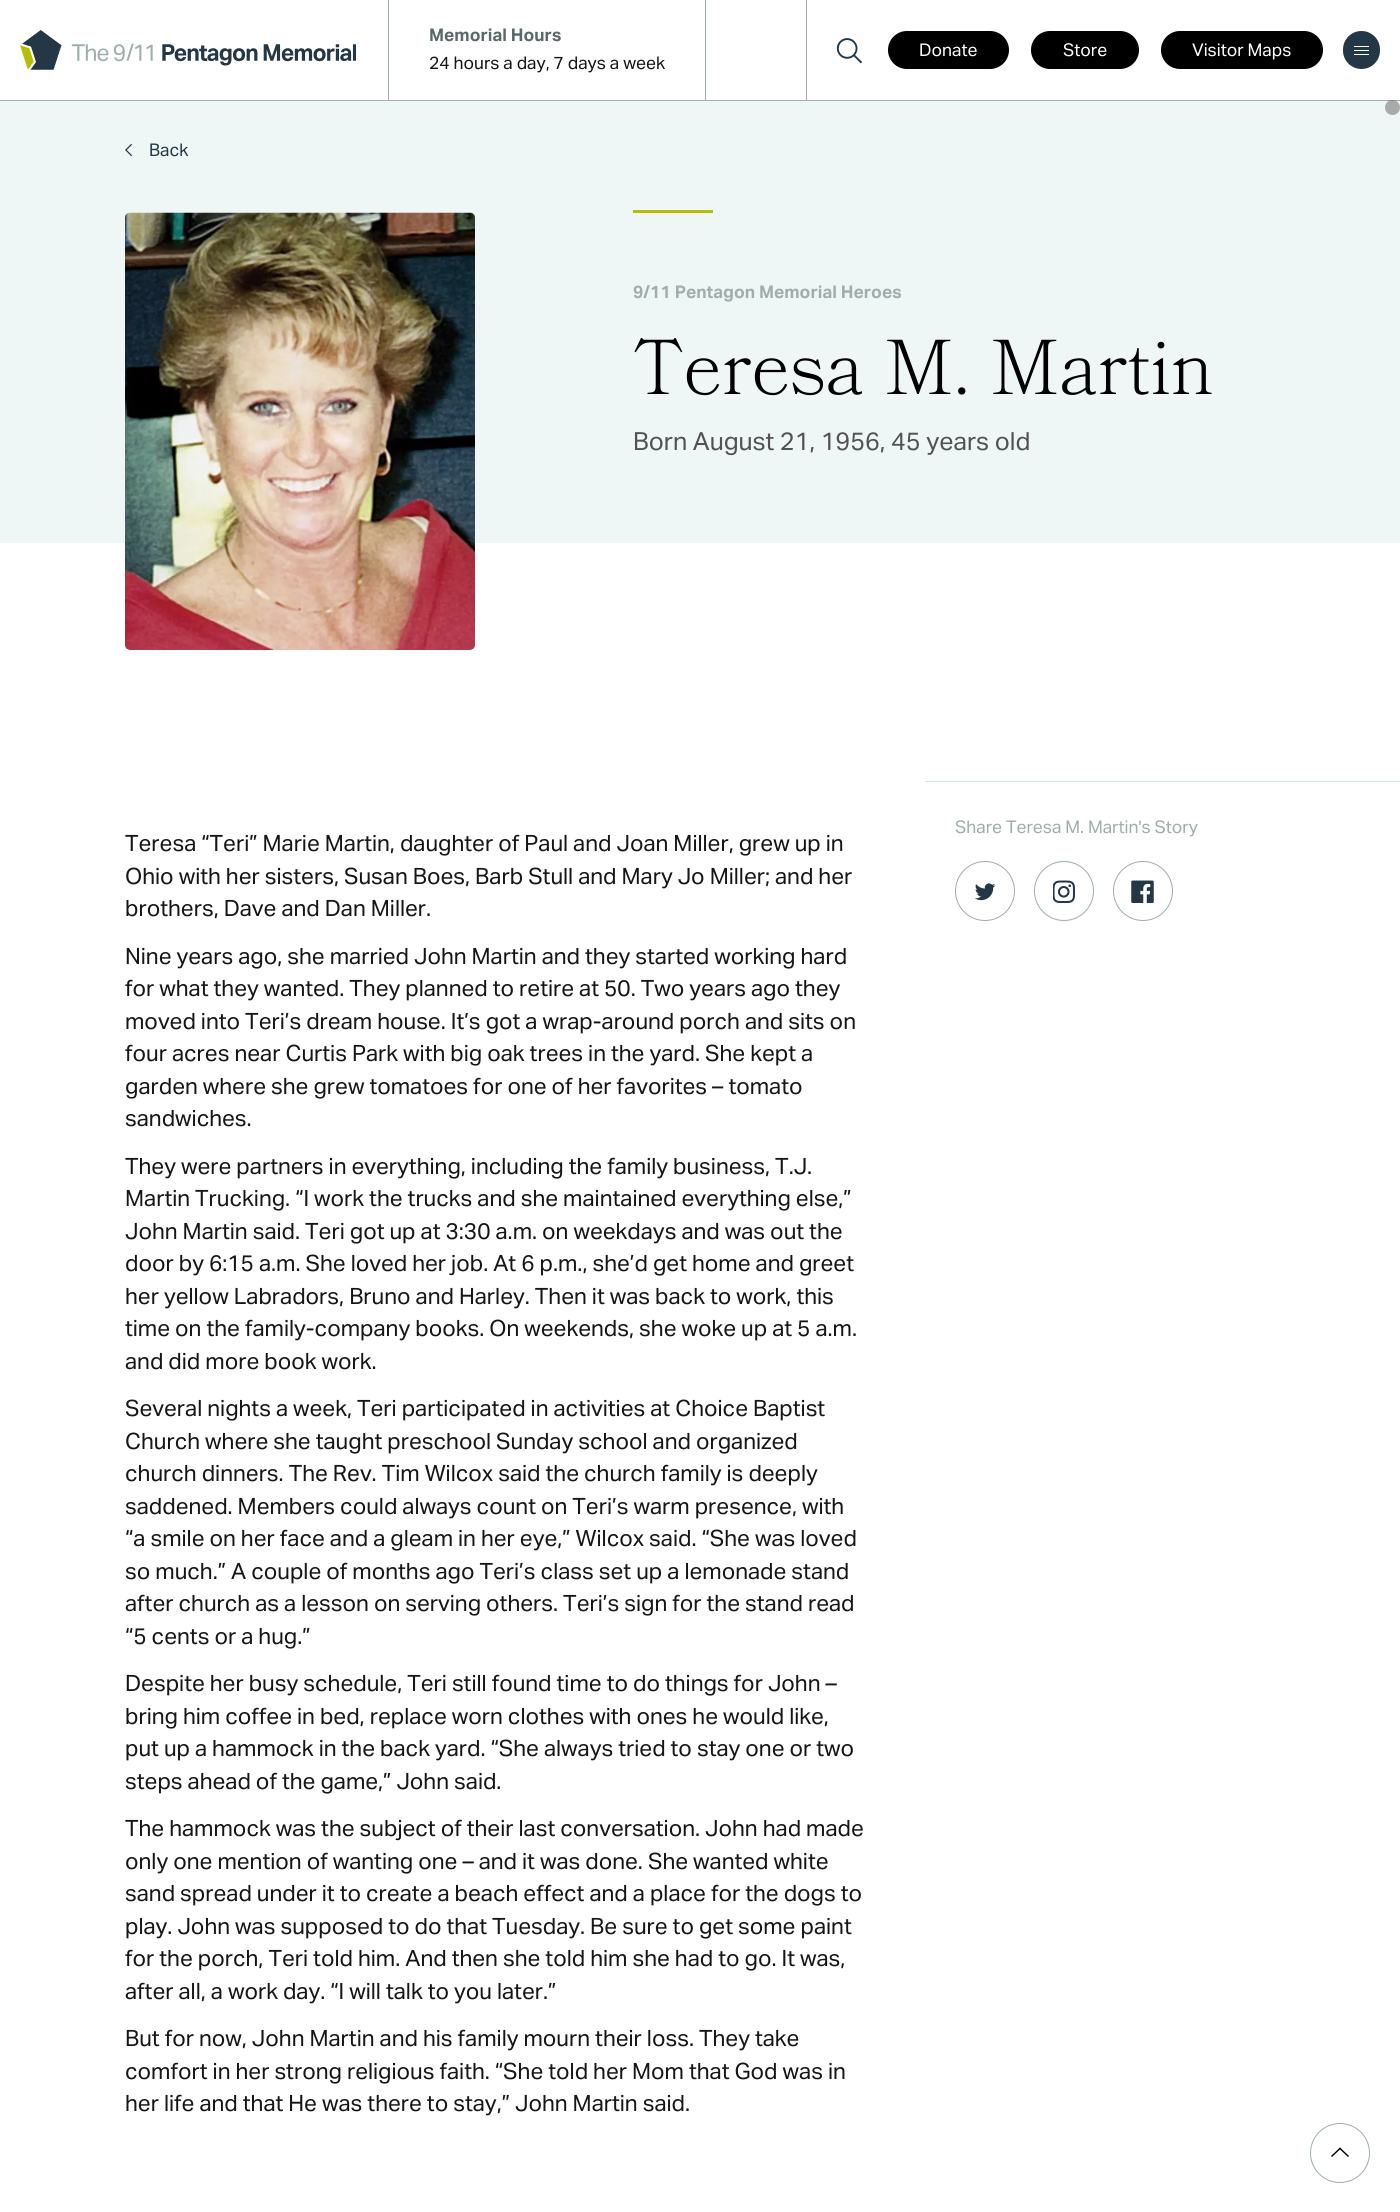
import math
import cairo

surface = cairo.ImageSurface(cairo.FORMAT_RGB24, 1400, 2212)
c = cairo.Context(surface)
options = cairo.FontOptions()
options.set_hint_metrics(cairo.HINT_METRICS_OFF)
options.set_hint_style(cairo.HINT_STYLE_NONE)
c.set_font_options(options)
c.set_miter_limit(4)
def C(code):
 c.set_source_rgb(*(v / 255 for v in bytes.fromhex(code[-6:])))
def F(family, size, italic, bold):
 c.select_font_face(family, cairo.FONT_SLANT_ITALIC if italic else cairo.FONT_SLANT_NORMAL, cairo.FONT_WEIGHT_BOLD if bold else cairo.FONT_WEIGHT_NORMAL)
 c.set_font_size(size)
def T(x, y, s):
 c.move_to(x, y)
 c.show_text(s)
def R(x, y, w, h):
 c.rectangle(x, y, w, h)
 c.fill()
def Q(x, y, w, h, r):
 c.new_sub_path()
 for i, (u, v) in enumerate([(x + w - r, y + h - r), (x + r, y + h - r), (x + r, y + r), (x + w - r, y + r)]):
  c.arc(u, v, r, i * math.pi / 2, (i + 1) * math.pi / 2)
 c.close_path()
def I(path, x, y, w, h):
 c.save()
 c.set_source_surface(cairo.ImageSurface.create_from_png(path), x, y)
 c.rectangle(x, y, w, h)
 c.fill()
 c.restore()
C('ffffff')
c.paint()
C('9fadac')
R(0,100,1400,1)
R(388,0,1,100)
I('1.png',20,30,336,40)
R(705,0,1,100)
F('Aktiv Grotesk',17.5,0,1)
C('596968')
T(429,41,'Memorial Hours')
F('Aktiv Grotesk',17.5,0,0)
C('161616')
T(429,69,'24 hours a day, 7 days a week')
C('9fadac')
R(806,0,1,100)
I('2.png',836,38,27,26)
C('000000')
Q(888,31,121,38,19)
c.fill()
C('ffffff')
T(919,56,'Donate')
C('000000')
Q(1031,31,108,38,19)
c.fill()
C('ffffff')
T(1063,56,'Store')
C('000000')
Q(1161,31,162,38,19)
c.fill()
C('ffffff')
T(1192,56,'Visitor Maps')
C('233746')
Q(1343,31,37,38,18.5)
c.fill()
C('ffffff')
R(1354,46,15,1)
R(1354,50,15,1)
R(1354,54,15,1)
C('eff7f6')
R(0,101,1400,442)
c.set_source_rgba(0.396,0.38,0.38,0.5)
c.arc(1392.5,107.5,7.5,0,2 * math.pi)
c.fill()
I('3.png',125,144,7,12)
C('233746')
T(149,156,'Back')
I('4.png',125,212,350,438)
C('b5be00')
R(633,210,80,3)
F('Aktiv Grotesk',17.5,0,1)
C('9fadac')
T(633,298,'9/11 Pentagon Memorial Heroes')
F('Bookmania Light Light',77.5,0,0)
C('000000')
T(633,394,'Teresa M. Martin')
F('Aktiv Grotesk',25,0,0)
C('525252')
T(633,450,'Born August 21, 1956, 45 years old')
C('d4e4e9')
R(925,781,475,1)
F('Aktiv Grotesk',17.5,0,0)
C('9fadac')
T(955,833,'Share Teresa M. Martin\'s Story')
I('5.png',974,883,22,18)
c.arc(985,891,29.5,0,2 * math.pi)
c.set_line_width(1)
c.stroke()
I('6.png',1053,880,22,23)
c.arc(1064,891,29.5,0,2 * math.pi)
c.stroke()
I('7.png',1131,880,23,23)
c.arc(1143,891,29.5,0,2 * math.pi)
c.stroke()
F('Aktiv Grotesk',22.5,0,0)
C('161616')
T(125,851,'Teresa “Teri” Marie Martin, daughter of Paul and Joan Miller, grew up in')
T(125,884,'Ohio with her sisters, Susan Boes, Barb Stull and Mary Jo Miller; and her')
T(125,916,'brothers, Dave and Dan Miller.')
T(125,964,'Nine years ago, she married John Martin and they started working hard')
T(125,996,'for what they wanted. They planned to retire at 50. Two years ago they')
T(125,1029,'moved into Teri’s dream house. It’s got a wrap-around porch and sits on')
T(125,1061,'four acres near Curtis Park with big oak trees in the yard. She kept a')
T(125,1094,'garden where she grew tomatoes for one of her favorites – tomato')
T(125,1126,'sandwiches.')
T(125,1174,'They were partners in everything, including the family business, T.J.')
T(125,1206,'Martin Trucking. “I work the trucks and she maintained everything else,”')
T(125,1239,'John Martin said. Teri got up at 3:30 a.m. on weekdays and was out the')
T(125,1271,'door by 6:15 a.m. She loved her job. At 6 p.m., she’d get home and greet')
T(125,1304,'her yellow Labradors, Bruno and Harley. Then it was back to work, this')
T(125,1336,'time on the family-company books. On weekends, she woke up at 5 a.m.')
T(125,1369,'and did more book work.')
T(125,1416,'Several nights a week, Teri participated in activities at Choice Baptist')
T(125,1449,'Church where she taught preschool Sunday school and organized')
T(125,1481,'church dinners. The Rev. Tim Wilcox said the church family is deeply')
T(125,1514,'saddened. Members could always count on Teri’s warm presence, with')
T(125,1546,'“a smile on her face and a gleam in her eye,” Wilcox said. “She was loved')
T(125,1579,'so much.” A couple of months ago Teri’s class set up a lemonade stand')
T(125,1611,'after church as a lesson on serving others. Teri’s sign for the stand read')
T(125,1644,'“5 cents or a hug.”')
T(125,1691,'Despite her busy schedule, Teri still found time to do things for John –')
T(125,1724,'bring him coffee in bed, replace worn clothes with ones he would like,')
T(125,1756,'put up a hammock in the back yard. “She always tried to stay one or two')
T(125,1789,'steps ahead of the game,” John said.')
T(125,1836,'The hammock was the subject of their last conversation. John had made')
T(125,1869,'only one mention of wanting one – and it was done. She wanted white')
T(125,1901,'sand spread under it to create a beach effect and a place for the dogs to')
T(125,1934,'play. John was supposed to do that Tuesday. Be sure to get some paint')
T(125,1966,'for the porch, Teri told him. And then she told him she had to go. It was,')
T(125,1999,'after all, a work day. “I will talk to you later.”')
T(125,2046,'But for now, John Martin and his family mourn their loss. They take')
T(125,2079,'comfort in her strong religious faith. “She told her Mom that God was in')
T(125,2111,'her life and that He was there to stay,” John Martin said.')
c.new_path()
c.arc(1340,2153,29.5,0,2 * math.pi)
C('9fadac')
c.stroke()
C('000000')
c.new_path()
c.move_to(1340,2147.5)
c.line_to(1349,2156)
c.line_to(1348,2157)
c.line_to(1339,2148.5)
c.close_path()
c.fill()
c.new_path()
c.move_to(1340,2147.5)
c.line_to(1341,2148.5)
c.line_to(1332,2157)
c.line_to(1331,2156)
c.close_path()
c.fill()
surface.write_to_png('o.png')
